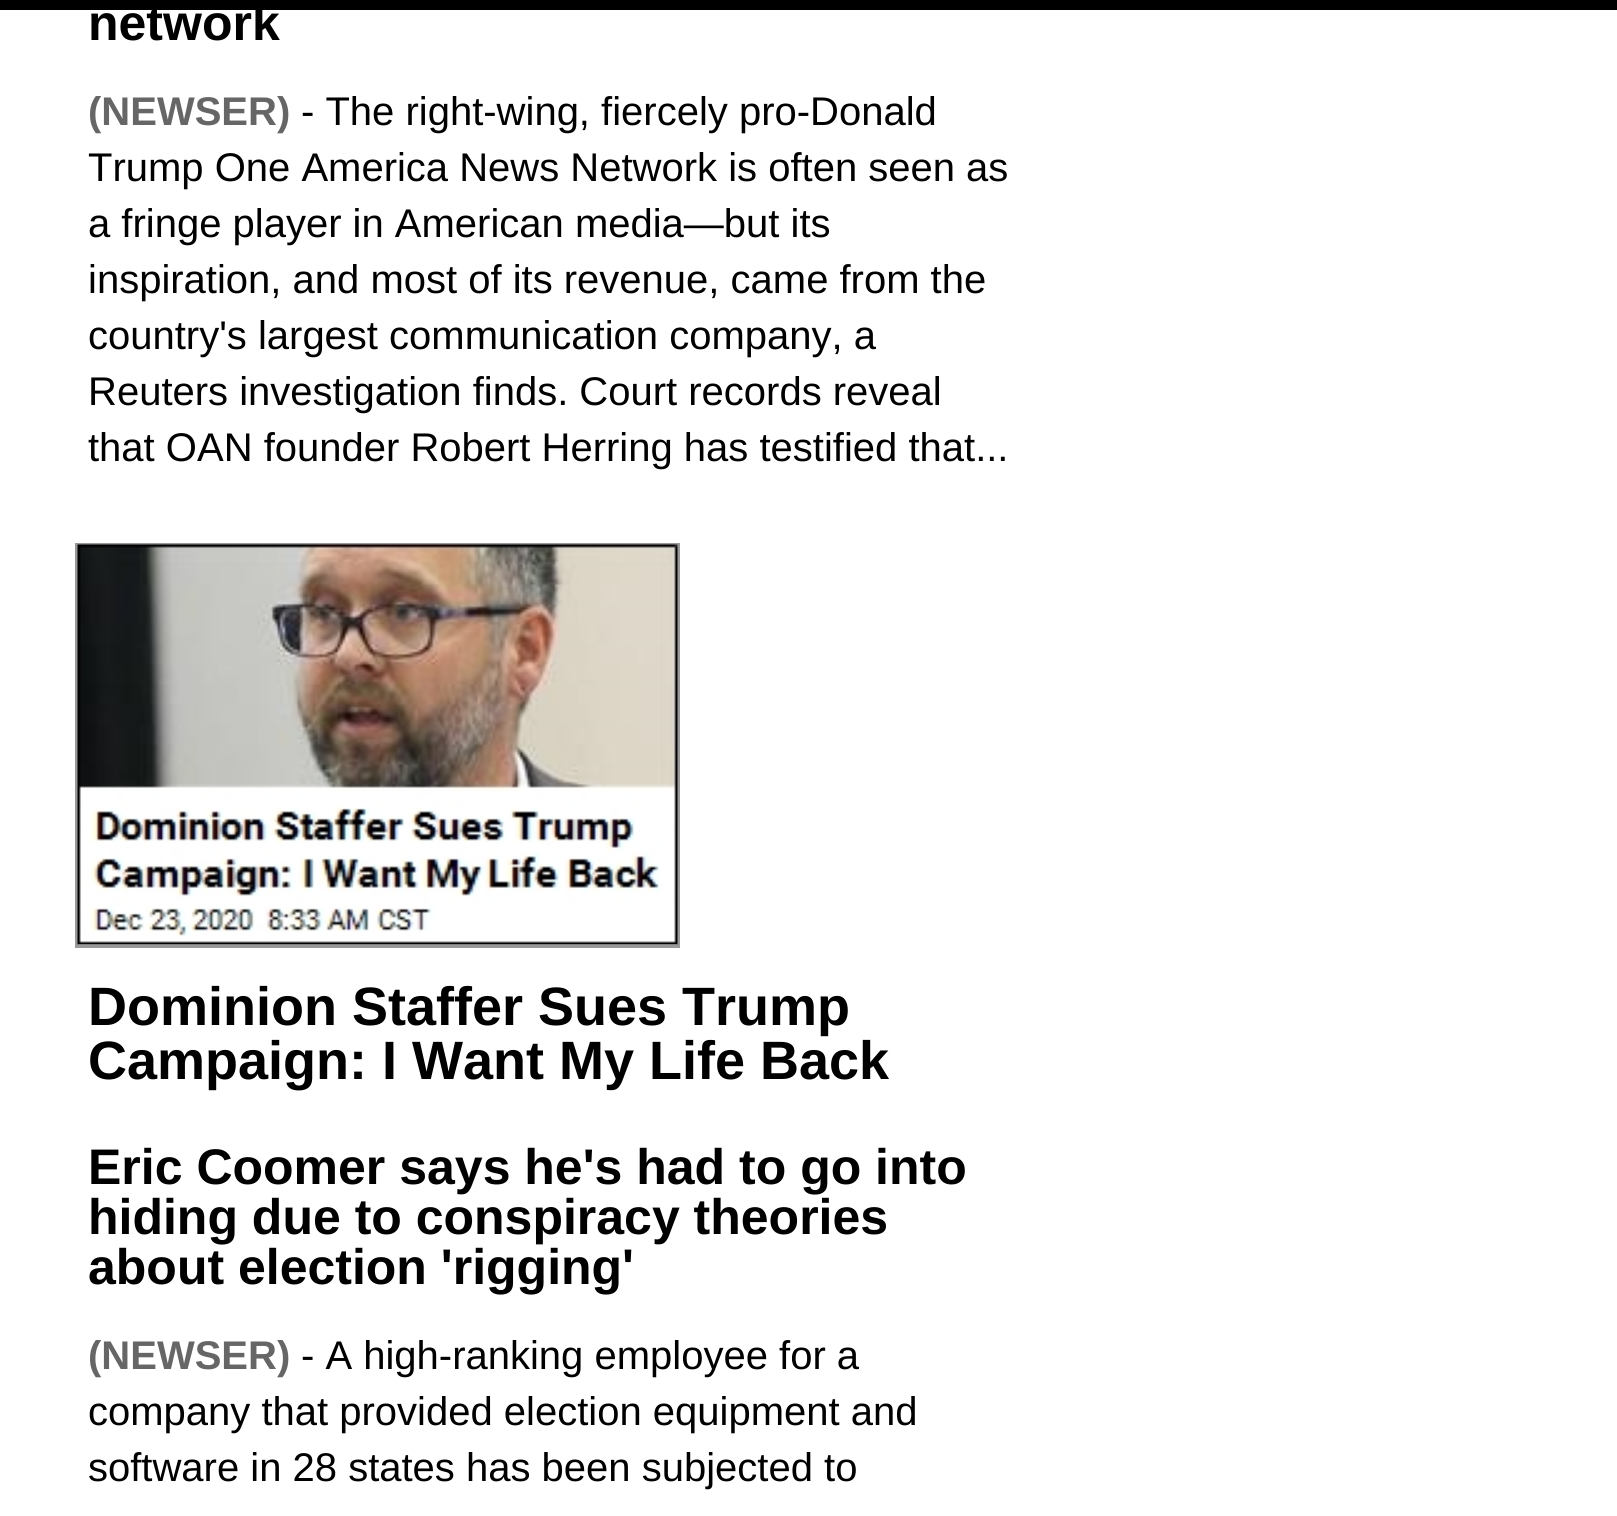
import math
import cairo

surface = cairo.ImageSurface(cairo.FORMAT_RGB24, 1617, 1516)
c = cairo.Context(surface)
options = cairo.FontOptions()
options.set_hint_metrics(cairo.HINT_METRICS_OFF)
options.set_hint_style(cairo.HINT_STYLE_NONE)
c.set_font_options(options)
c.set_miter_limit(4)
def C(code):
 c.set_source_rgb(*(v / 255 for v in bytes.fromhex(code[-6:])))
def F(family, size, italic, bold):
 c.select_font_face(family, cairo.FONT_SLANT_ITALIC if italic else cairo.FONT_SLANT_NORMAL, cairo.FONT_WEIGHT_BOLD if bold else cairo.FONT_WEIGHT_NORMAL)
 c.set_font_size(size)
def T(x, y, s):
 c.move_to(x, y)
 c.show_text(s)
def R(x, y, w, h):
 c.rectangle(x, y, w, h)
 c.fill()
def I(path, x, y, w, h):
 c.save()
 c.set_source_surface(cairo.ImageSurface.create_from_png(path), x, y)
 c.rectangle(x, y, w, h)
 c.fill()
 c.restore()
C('ffffff')
c.paint()
C('000000')
R(0,0,1617,10)
F('Liberation Sans',50,0,1)
T(88,40,'network')
F('Liberation Sans',40,0,1)
C('666666')
T(88,125,'(NEWSER)')
F('Liberation Sans',40,0,0)
C('000000')
T(301,125,'- The right-wing, fiercely pro-Donald')
T(88,181,'Trump One America News Network is often seen as')
T(88,237,'a fringe player in American media—but its')
T(88,293,'inspiration, and most of its revenue, came from the')
T(88,349,'country\'s largest communication company, a')
T(88,405,'Reuters investigation finds. Court records reveal')
T(88,461,'that OAN founder Robert Herring has testified that...')
c.rectangle(76.5,544.5,602,402)
C('999999')
c.set_line_width(3)
c.stroke()
I('1.png',77,544,601,401)
F('Liberation Sans',54,0,1)
C('000000')
T(88,1025,'Dominion Staffer Sues Trump')
T(88,1079,'Campaign: I Want My Life Back')
F('Liberation Sans',50,0,1)
T(88,1184,'Eric Coomer says he\'s had to go into')
T(88,1234,'hiding due to conspiracy theories')
T(88,1284,'about election \'rigging\'')
F('Liberation Sans',40,0,1)
C('666666')
T(88,1369,'(NEWSER)')
F('Liberation Sans',40,0,0)
C('000000')
T(301,1369,'- A high-ranking employee for a')
T(88,1425,'company that provided election equipment and')
T(88,1481,'software in 28 states has been subjected to')
surface.write_to_png('o.png')
